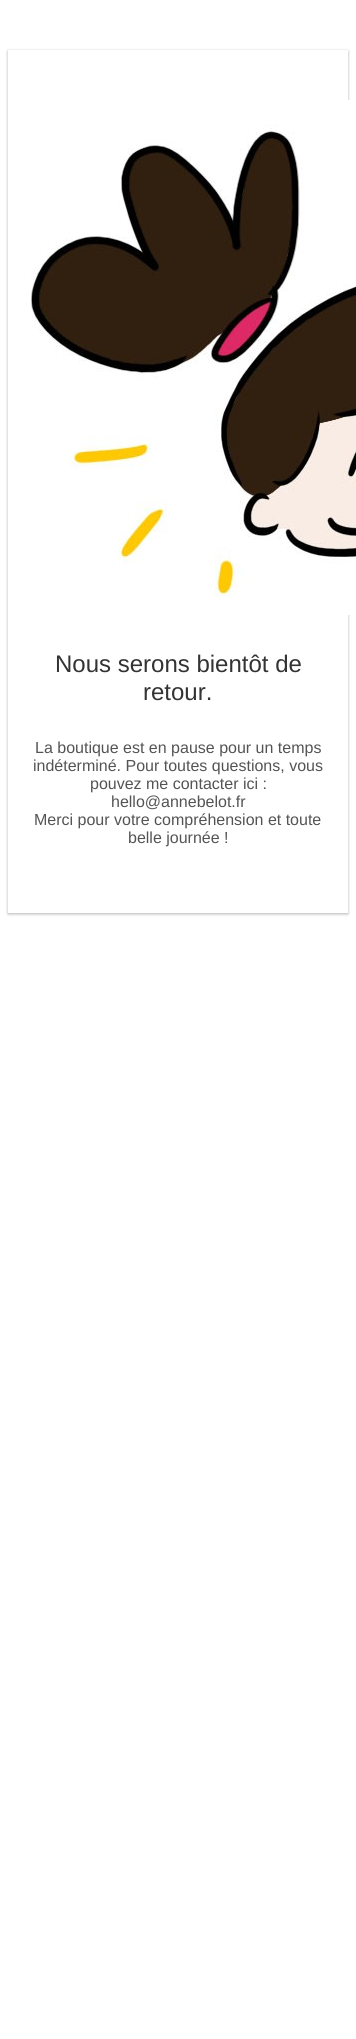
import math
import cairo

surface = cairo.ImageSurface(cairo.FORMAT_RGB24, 356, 2039)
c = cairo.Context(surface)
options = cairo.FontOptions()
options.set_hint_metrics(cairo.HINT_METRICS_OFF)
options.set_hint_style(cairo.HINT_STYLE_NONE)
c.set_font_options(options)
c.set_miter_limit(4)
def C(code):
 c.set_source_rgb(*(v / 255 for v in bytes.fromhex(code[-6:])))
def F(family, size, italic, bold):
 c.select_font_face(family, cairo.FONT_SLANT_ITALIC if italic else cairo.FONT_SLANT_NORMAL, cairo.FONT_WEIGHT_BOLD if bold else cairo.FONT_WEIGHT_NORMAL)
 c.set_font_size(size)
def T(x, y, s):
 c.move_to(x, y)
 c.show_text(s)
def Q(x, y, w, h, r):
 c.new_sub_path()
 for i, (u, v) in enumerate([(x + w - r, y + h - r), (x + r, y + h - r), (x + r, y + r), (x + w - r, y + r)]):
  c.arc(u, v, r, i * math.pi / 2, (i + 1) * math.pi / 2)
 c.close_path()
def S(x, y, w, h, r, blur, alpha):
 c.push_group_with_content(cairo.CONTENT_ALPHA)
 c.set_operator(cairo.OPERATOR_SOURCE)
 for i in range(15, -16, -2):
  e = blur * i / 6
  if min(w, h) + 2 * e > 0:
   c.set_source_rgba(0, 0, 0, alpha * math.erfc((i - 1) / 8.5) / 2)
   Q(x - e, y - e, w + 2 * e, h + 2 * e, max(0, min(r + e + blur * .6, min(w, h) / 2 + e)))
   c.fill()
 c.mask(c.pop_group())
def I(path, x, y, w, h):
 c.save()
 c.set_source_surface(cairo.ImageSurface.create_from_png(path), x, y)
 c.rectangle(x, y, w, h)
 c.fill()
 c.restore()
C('ffffff')
c.paint()
c.save()
c.set_fill_rule(cairo.FILL_RULE_EVEN_ODD)
c.new_path()
c.move_to(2,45)
c.line_to(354,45)
c.line_to(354,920)
c.line_to(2,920)
c.close_path()
c.move_to(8,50)
c.line_to(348,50)
c.line_to(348,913)
c.line_to(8,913)
c.close_path()
c.clip()
C('000000')
S(8,51,340,863,0,1.5,.3)
c.restore()
I('1.png',31,100,325,515)
F('Liberation Sans',24,0,0)
C('333333')
T(55,672,'Nous serons bientôt de')
T(143,700,'retour.')
F('Liberation Sans',16,0,0)
C('555454')
T(35,753,'La boutique est en pause pour un temps')
T(33,771,'indéterminé. Pour toutes questions, vous')
T(90,789,'pouvez me contacter ici :')
T(111,807,'hello@annebelot.fr')
T(34,825,'Merci pour votre compréhension et toute')
T(128,843,'belle journée !')
surface.write_to_png('o.png')
